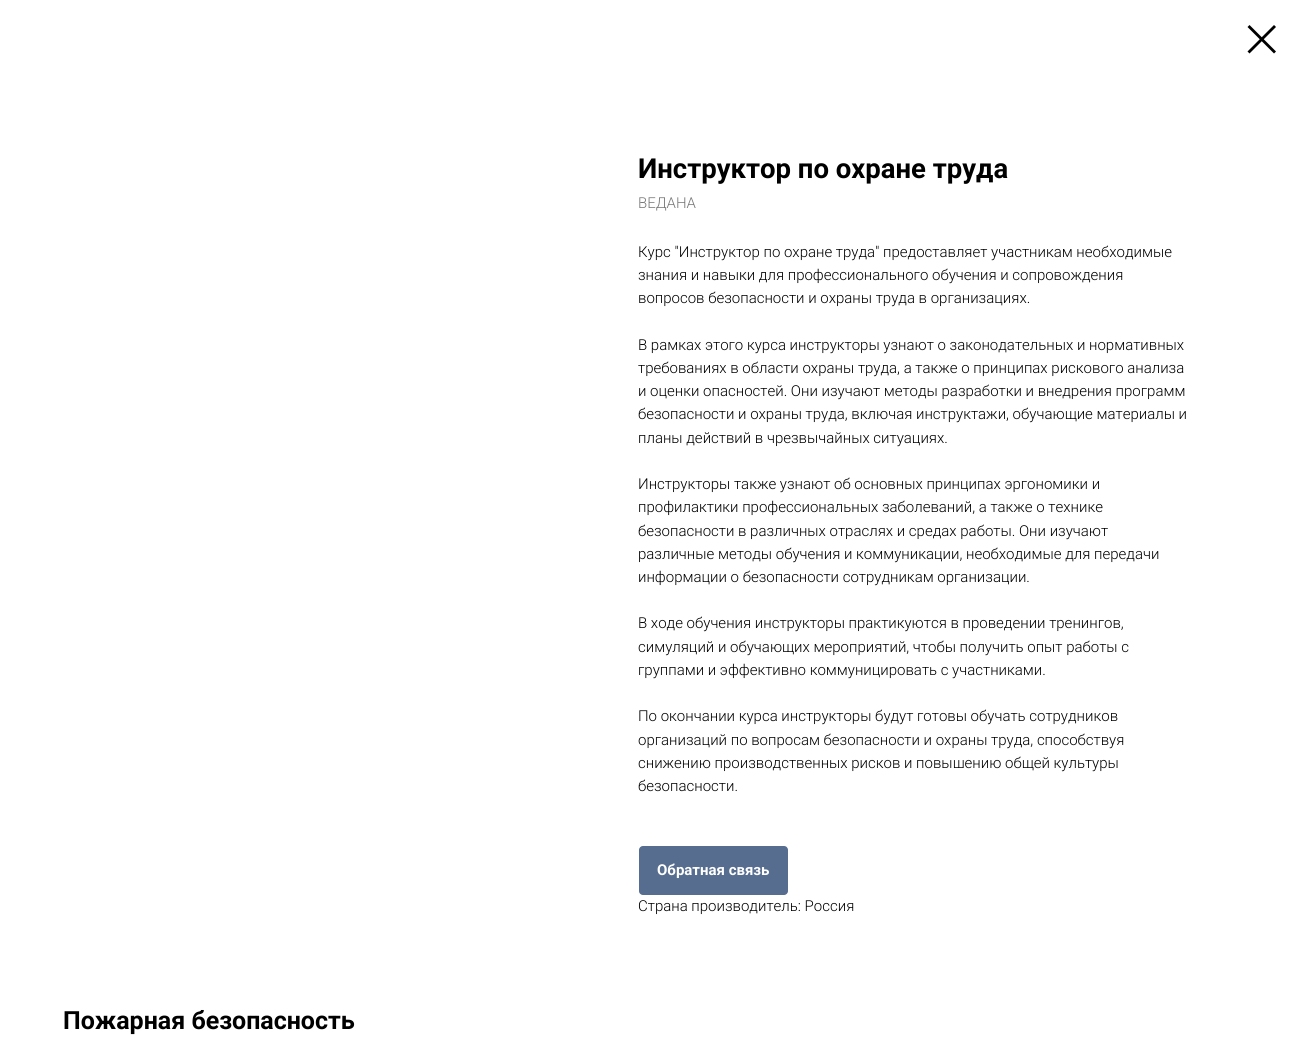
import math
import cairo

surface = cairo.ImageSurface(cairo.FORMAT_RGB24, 1301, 1043)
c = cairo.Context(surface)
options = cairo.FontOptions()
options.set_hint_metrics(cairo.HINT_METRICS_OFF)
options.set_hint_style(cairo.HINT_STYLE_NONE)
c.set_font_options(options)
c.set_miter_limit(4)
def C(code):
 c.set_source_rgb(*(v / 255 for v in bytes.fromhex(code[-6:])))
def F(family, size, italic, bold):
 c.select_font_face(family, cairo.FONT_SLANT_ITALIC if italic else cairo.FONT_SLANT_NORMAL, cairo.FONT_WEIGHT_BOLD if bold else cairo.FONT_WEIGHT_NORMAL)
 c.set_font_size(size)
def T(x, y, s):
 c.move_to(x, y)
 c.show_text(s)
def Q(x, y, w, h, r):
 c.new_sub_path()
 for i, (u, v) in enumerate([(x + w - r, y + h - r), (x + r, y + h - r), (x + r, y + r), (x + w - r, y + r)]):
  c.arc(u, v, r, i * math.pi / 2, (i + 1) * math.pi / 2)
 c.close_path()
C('ffffff')
c.paint()
C('000000')
c.set_fill_rule(cairo.FILL_RULE_EVEN_ODD)
c.new_path()
c.move_to(1247.5,27)
c.line_to(1249.5,25)
c.line_to(1276,51.5)
c.line_to(1274,53.5)
c.close_path()
c.fill()
c.new_path()
c.move_to(1274,25)
c.line_to(1276,27)
c.line_to(1249.5,53.5)
c.line_to(1247.5,51.5)
c.close_path()
c.fill()
F('Roboto',27.5,0,1)
T(638,178,'Инструктор по охране труда')
F('Roboto Light',15,0,0)
C('777777')
T(638,208,'ВЕДАНА')
C('000000')
T(638,257,'Курс "Инструктор по охране труда" предоставляет участникам необходимые')
T(638,280,'знания и навыки для профессионального обучения и сопровождения')
T(638,303,'вопросов безопасности и охраны труда в организациях.')
T(638,350,'В рамках этого курса инструкторы узнают о законодательных и нормативных')
T(638,373,'требованиях в области охраны труда, а также о принципах рискового анализа')
T(638,396,'и оценки опасностей. Они изучают методы разработки и внедрения программ')
T(638,419,'безопасности и охраны труда, включая инструктажи, обучающие материалы и')
T(638,443,'планы действий в чрезвычайных ситуациях.')
T(638,489,'Инструкторы также узнают об основных принципах эргономики и')
T(638,512,'профилактики профессиональных заболеваний, а также о технике')
T(638,536,'безопасности в различных отраслях и средах работы. Они изучают')
T(638,559,'различные методы обучения и коммуникации, необходимые для передачи')
T(638,582,'информации о безопасности сотрудникам организации.')
T(638,628,'В ходе обучения инструкторы практикуются в проведении тренингов,')
T(638,652,'симуляций и обучающих мероприятий, чтобы получить опыт работы с')
T(638,675,'группами и эффективно коммуницировать с участниками.')
T(638,721,'По окончании курса инструкторы будут готовы обучать сотрудников')
T(638,745,'организаций по вопросам безопасности и охраны труда, способствуя')
T(638,768,'снижению производственных рисков и повышению общей культуры')
T(638,791,'безопасности.')
C('566d90')
Q(639,846,149,49,4)
c.fill()
F('Roboto',15,0,1)
C('ffffff')
T(657,875,'Обратная связь')
F('Roboto Light',15,0,0)
C('000000')
T(638,911,'Страна производитель: Россия')
F('Roboto',25,0,1)
T(63,1029,'Пожарная безопасность')
surface.write_to_png('o.png')
